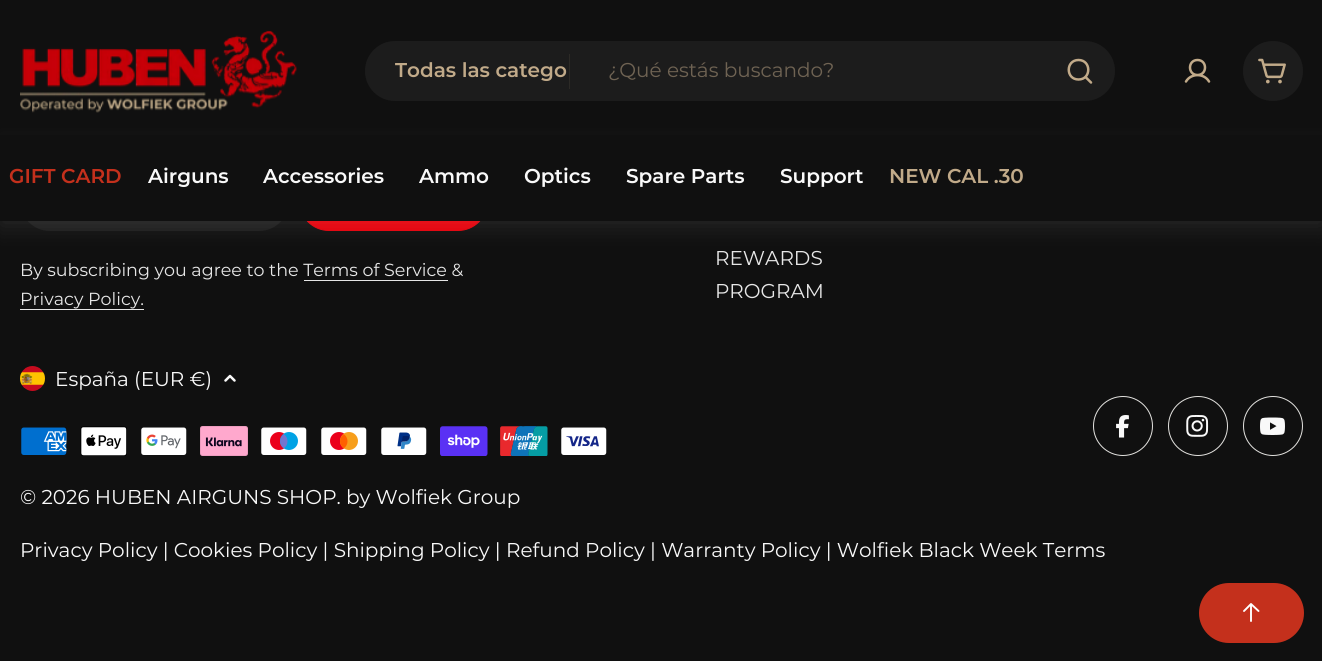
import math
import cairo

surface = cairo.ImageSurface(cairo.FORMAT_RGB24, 1322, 661)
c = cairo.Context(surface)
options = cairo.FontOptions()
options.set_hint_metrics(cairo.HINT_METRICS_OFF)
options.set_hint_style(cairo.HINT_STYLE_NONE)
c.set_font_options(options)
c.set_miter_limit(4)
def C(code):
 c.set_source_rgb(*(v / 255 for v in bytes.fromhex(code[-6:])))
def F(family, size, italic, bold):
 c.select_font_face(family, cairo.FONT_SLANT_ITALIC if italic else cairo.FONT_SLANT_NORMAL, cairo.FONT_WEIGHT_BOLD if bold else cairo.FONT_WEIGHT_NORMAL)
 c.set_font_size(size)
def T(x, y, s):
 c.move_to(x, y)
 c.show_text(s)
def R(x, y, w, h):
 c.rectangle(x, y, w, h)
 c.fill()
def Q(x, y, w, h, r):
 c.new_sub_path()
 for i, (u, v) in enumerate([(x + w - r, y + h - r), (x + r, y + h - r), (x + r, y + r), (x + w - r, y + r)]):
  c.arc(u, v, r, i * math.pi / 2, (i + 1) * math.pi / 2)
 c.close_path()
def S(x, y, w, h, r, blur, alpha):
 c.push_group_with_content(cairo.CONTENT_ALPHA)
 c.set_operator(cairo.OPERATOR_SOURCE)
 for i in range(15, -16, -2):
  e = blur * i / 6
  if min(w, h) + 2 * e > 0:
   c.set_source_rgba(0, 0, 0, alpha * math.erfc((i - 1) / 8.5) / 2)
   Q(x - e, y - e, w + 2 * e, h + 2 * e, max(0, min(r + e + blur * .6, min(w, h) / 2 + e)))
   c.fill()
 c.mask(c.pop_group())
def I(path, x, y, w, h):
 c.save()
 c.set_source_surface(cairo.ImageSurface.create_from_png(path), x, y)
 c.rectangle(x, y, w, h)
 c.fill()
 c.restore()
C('101010')
c.paint()
I('1.png',20,30,277,83)
C('1c1c1c')
Q(365,41,750,60,30)
c.fill()
F('Montserrat SemiBold',20,0,0)
C('c1aa89')
T(395,77,'Todas las catego')
c.set_source_rgba(0.757,0.667,0.537,0.1)
R(569,54,1,35)
F('Montserrat',20,0,0)
C('6f6353')
T(608,77,'¿Qué estás buscando?')
c.new_path()
c.move_to(1078.5,79.5)
c.curve_to(1091.5,79.5,1091.5,60,1078.5,60)
c.curve_to(1065.5,60,1065.5,79.5,1078.5,79.5)
c.close_path()
c.move_to(1085.5,77)
c.line_to(1091,82.5)
C('c1aa89')
c.set_line_width(2.5)
c.set_line_cap(cairo.LINE_CAP_ROUND)
c.set_line_join(cairo.LINE_JOIN_ROUND)
c.stroke()
c.new_path()
c.move_to(1197.5,75)
c.curve_to(1207.5,75,1207.5,60,1197.5,60)
c.curve_to(1187.5,60,1187.5,75,1197.5,75)
c.close_path()
c.move_to(1186,81.5)
c.curve_to(1191,73,1204,73,1209,81.5)
c.stroke()
C('1c1c1c')
c.arc(1273,71,30,0,2 * math.pi)
c.fill()
I('2.png',1258,58,28,26)
Q(20,171,269,60,30)
c.fill()
C('e3000a')
Q(299.5,171.5,188,59,29.5)
c.fill_preserve()
c.set_line_width(1)
c.set_line_cap(cairo.LINE_CAP_BUTT)
c.set_line_join(cairo.LINE_JOIN_MITER)
c.stroke()
C('f9f9f9')
S(0,148,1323,78,0,11,.1)
C('101010')
R(0,135,1322,86)
F('Montserrat SemiBold',20,0,0)
C('c4301c')
T(9,183,'GIFT CARD')
C('f9f9f9')
T(148,183,'Airguns')
T(263,183,'Accessories')
T(419,183,'Ammo')
T(524,183,'Optics')
T(626,183,'Spare Parts')
T(780,183,'Support')
C('c1aa89')
T(889,183,'NEW CAL .30')
F('Montserrat',17.5,0,0)
C('e6e6e6')
T(20,276,'By subscribing you agree to the Terms of Service &')
R(304,280,144,1)
T(20,305,'Privacy Policy.')
R(20,309,124,1)
F('Montserrat',20,0,0)
T(715,265,'REWARDS')
T(715,298,'PROGRAM')
I('3.png',20,366,25,25)
C('f9f9f9')
T(55,386,'España (EUR €)')
c.new_path()
c.move_to(225.5,380.5)
c.line_to(230,376)
c.line_to(234.5,380.5)
c.set_line_width(2.5)
c.set_line_cap(cairo.LINE_CAP_ROUND)
c.set_line_join(cairo.LINE_JOIN_ROUND)
c.stroke()
I('4.png',21,427,46,28)
I('5.png',80,426,47,30)
I('6.png',141,427,46,28)
I('7.png',200,426,48,30)
I('8.png',261,427,46,28)
I('9.png',321,427,46,28)
I('10.png',381,427,46,28)
I('11.png',440,426,48,30)
I('12.png',500,426,48,30)
I('13.png',561,427,46,28)
c.arc(1123,426,29.5,0,2 * math.pi)
C('e2e1de')
c.set_line_width(1)
c.set_line_cap(cairo.LINE_CAP_BUTT)
c.set_line_join(cairo.LINE_JOIN_MITER)
c.stroke()
I('14.png',1116,415,13,23)
c.arc(1198,426,29.5,0,2 * math.pi)
c.stroke()
I('15.png',1186,415,23,22)
c.arc(1273,426,29.5,0,2 * math.pi)
c.stroke()
I('16.png',1260,417,25,18)
C('f9f9f9')
T(20,504,'© 2026 HUBEN AIRGUNS SHOP. by Wolfiek Group')
T(20,557,'Privacy Policy | Cookies Policy | Shipping Policy | Refund Policy | Warranty Policy | Wolfiek Black Week Terms')
C('c4301c')
Q(1199,583,105,60,30)
c.fill()
c.new_path()
c.move_to(1251,621)
c.line_to(1251,604)
c.move_to(1244,611)
c.line_to(1251,604)
c.line_to(1258.5,611)
C('ffffff')
c.set_line_width(1.9)
c.set_line_cap(cairo.LINE_CAP_ROUND)
c.set_line_join(cairo.LINE_JOIN_ROUND)
c.stroke()
surface.write_to_png('o.png')
